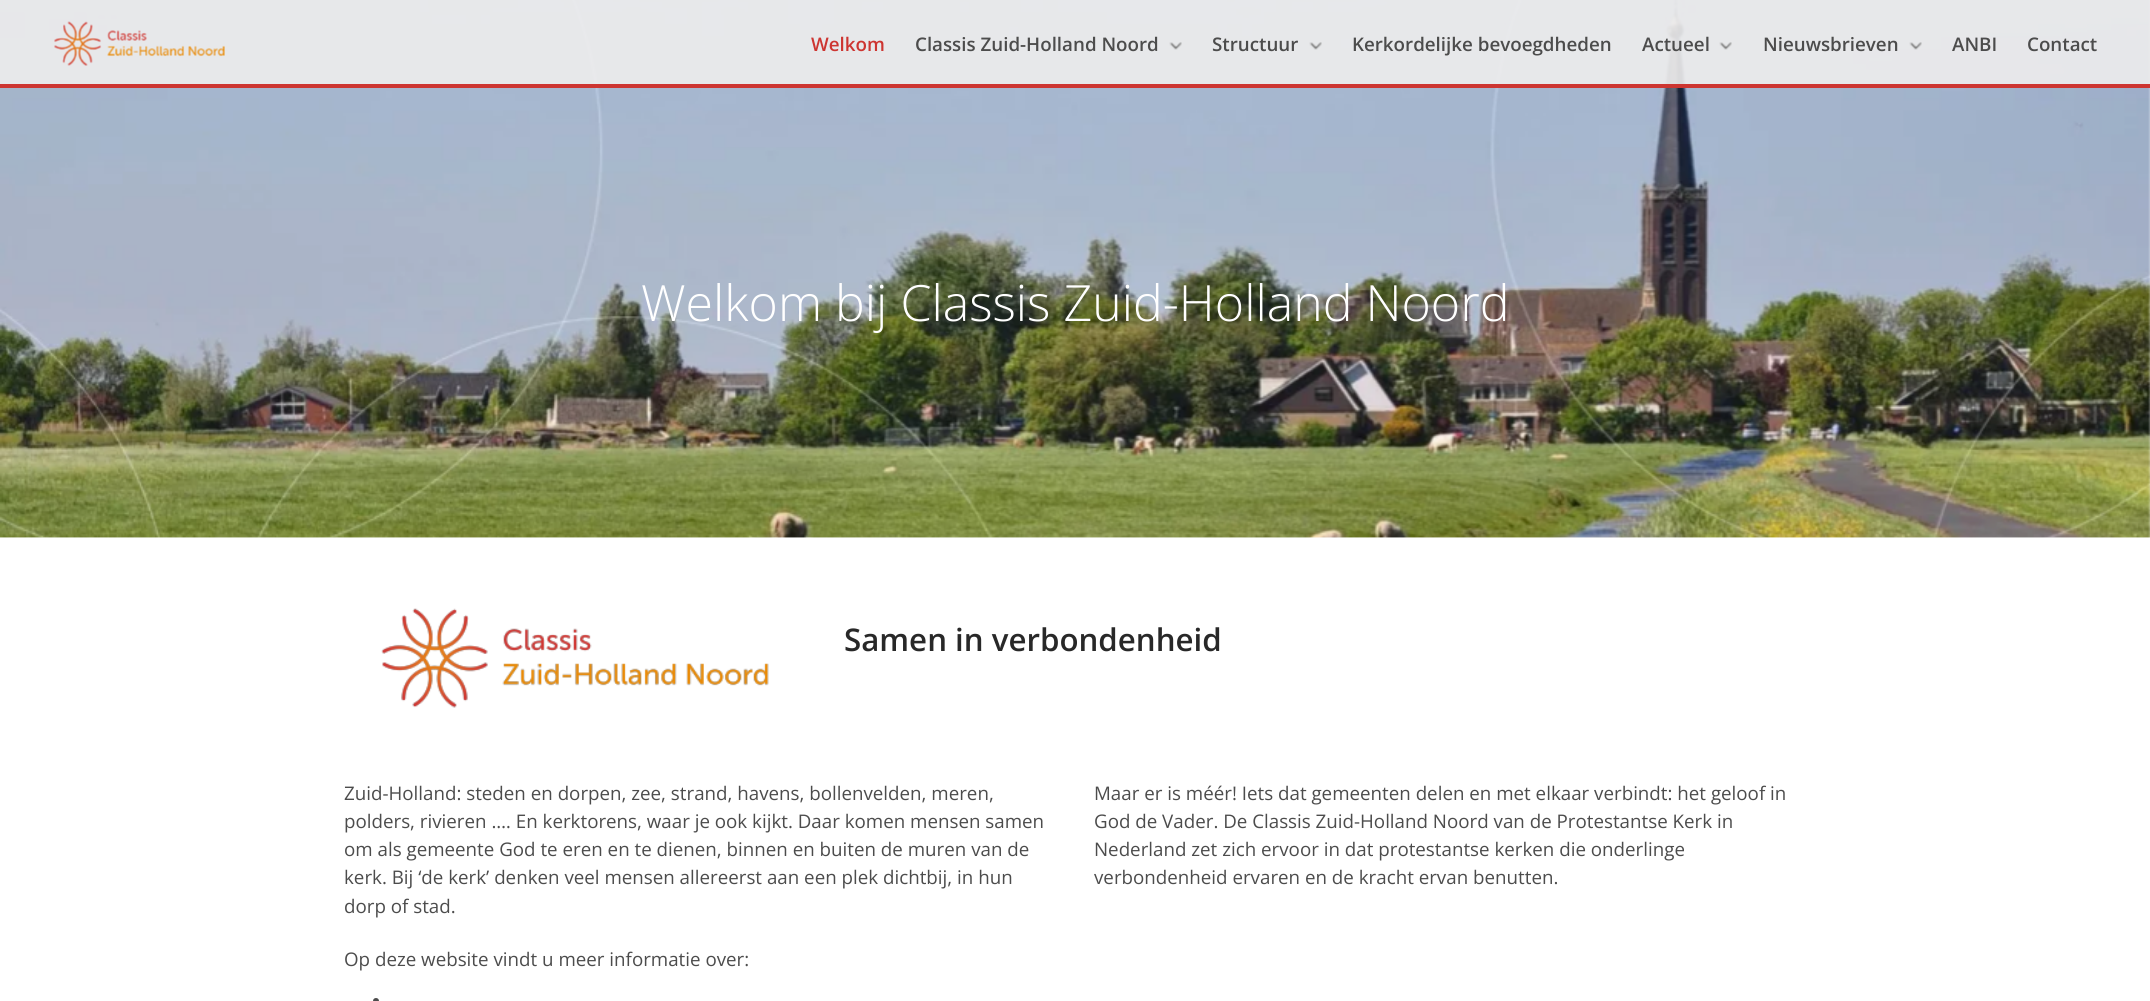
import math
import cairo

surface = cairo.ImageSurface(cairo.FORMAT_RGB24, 2150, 1001)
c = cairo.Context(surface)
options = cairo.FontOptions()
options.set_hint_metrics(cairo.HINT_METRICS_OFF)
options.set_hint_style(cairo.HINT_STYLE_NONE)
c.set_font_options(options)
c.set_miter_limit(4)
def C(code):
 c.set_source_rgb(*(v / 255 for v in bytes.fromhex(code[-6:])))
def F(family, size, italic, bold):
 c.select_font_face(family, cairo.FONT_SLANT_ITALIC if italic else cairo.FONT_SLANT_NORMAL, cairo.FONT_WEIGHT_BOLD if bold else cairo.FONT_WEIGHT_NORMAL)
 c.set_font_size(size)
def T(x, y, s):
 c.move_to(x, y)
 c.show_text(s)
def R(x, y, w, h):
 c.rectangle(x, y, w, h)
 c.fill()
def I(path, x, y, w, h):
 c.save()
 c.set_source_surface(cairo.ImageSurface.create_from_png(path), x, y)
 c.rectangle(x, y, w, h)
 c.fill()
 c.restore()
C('ffffff')
c.paint()
I('6.png',0,0,2150,538)
c.set_source_rgba(0.937,0.933,0.933,0.9)
R(0,0,2150,84)
C('cd3531')
R(0,84,2150,4)
I('1.png',54,21,171,45)
F('Open Sans SemiBold',18.75,0,0)
T(811,51,'Welkom')
C('4c4c4c')
T(915,51,'Classis Zuid-Holland Noord')
I('2.png',1169,42,13,8)
T(1212,51,'Structuur')
I('3.png',1309,42,13,8)
T(1352,51,'Kerkordelijke bevoegdheden')
T(1642,51,'Actueel')
I('4.png',1719,42,13,8)
T(1763,51,'Nieuwsbrieven')
I('5.png',1909,42,13,8)
T(1952,51,'ANBI')
T(2027,51,'Contact')
F('Open Sans Light',50,0,0)
C('ffffff')
T(641,321,'Welkom bij Classis Zuid-Holland Noord')
I('7.png',381,608,388,100)
F('Open Sans SemiBold',31.25,0,0)
C('282828')
T(844,651,'Samen in verbondenheid')
F('Open Sans',18.75,0,0)
C('4c4c4c')
T(344,800,'Zuid-Holland: steden en dorpen, zee, strand, havens, bollenvelden, meren,')
T(344,828,'polders, rivieren .… En kerktorens, waar je ook kijkt. Daar komen mensen samen')
T(344,856,'om als gemeente God te eren en te dienen, binnen en buiten de muren van de')
T(344,884,'kerk. Bij ‘de kerk’ denken veel mensen allereerst aan een plek dichtbij, in hun')
T(344,913,'dorp of stad.')
T(1094,800,'Maar er is méér! Iets dat gemeenten delen en met elkaar verbindt: het geloof in')
T(1094,828,'God de Vader. De Classis Zuid-Holland Noord van de Protestantse Kerk in')
T(1094,856,'Nederland zet zich ervoor in dat protestantse kerken die onderlinge')
T(1094,884,'verbondenheid ervaren en de kracht ervan benutten.')
T(344,966,'Op deze website vindt u meer informatie over:')
c.new_path()
c.arc(376,1001,3,0,2 * math.pi)
c.fill()
surface.write_to_png('o.png')
